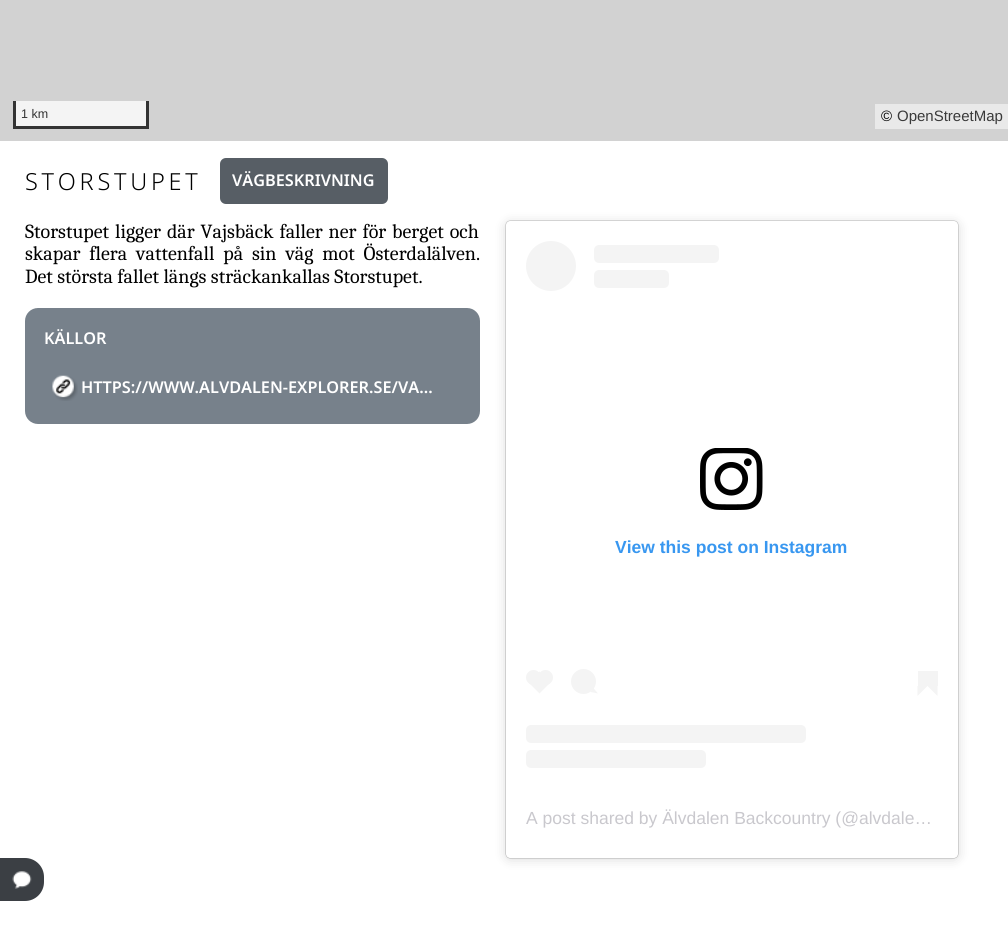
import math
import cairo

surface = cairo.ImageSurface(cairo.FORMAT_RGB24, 1008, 926)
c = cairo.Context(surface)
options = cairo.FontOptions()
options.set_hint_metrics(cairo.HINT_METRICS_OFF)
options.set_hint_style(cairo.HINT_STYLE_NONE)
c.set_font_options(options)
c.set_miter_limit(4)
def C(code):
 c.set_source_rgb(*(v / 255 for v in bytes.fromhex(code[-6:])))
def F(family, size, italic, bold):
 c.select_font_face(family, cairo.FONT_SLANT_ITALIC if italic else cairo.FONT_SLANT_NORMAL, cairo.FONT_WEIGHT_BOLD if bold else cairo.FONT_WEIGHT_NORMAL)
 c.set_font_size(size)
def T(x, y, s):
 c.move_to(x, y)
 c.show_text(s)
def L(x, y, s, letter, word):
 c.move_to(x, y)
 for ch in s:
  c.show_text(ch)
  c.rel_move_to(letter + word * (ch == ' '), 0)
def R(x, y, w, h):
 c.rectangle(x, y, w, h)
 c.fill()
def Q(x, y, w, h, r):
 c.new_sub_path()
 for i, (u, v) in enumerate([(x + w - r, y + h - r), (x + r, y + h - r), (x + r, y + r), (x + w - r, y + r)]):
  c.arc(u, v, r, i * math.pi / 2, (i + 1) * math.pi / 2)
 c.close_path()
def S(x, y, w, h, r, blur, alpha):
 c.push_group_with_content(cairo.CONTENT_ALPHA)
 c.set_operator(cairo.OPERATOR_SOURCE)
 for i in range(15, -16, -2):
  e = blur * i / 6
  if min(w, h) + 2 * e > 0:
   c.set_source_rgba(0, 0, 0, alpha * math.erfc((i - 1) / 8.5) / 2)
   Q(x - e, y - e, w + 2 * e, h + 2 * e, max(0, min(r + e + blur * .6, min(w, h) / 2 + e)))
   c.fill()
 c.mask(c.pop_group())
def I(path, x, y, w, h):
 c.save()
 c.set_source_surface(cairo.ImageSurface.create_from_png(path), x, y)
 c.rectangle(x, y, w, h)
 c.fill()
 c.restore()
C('ffffff')
c.paint()
C('d2d2d2')
R(0,0,1008,141)
C('f4f4f4')
R(16,101,130,25)
C('333333')
R(146,101,3,28)
R(13,126,136,3)
R(13,101,3,28)
F('Liberation Sans',12.5,0,0)
T(21,118,'1 km')
C('e9e9e9')
R(875,104,133,25)
F('Liberation Sans',15,0,0)
C('000000')
T(881,121,'©')
C('3a3a3a')
T(897,121,'OpenStreetMap')
F('Noto Sans Light',23.5,0,0)
C('000000')
L(25,190,'STORSTUPET',3.75,0)
C('575e65')
Q(220,158,168,46,6)
c.fill()
F('Noto Sans SemiBold',16.25,0,0)
C('ffffff')
T(232,186,'VÄGBESKRIVNING')
F('Caladea',20,0,0)
C('000000')
L(25,238,'Storstupet ligger där Vajsbäck faller ner för berget och',0,1.5)
L(25,260,'skapar flera vattenfall på sin väg mot Österdalälven.',0,4.5)
T(25,283,'Det största fallet längs sträckankallas Storstupet.')
C('77818b')
Q(25,308,455,116,13)
c.fill()
F('Noto Sans SemiBold',16.25,0,0)
C('ffffff')
T(44,344,'KÄLLOR')
I('1.png',52,375,26,26)
T(81,393,'HTTPS://WWW.ALVDALEN-EXPLORER.SE/VA…')
C('000000')
S(506,223,452,636,4,6,.15)
S(506,221,452,637,4,.5,.5)
C('ffffff')
Q(506,221,452,637,4)
c.fill()
C('f4f4f4')
c.arc(551,266,25,0,2 * math.pi)
c.fill()
Q(594,245,125,18,5)
c.fill()
Q(594,270,75,18,5)
c.fill()
I('2.png',700,448,63,62)
F('Liberation Sans',17.5,0,1)
C('3897f0')
T(615,553,'View this post on Instagram')
C('f4f4f4')
c.new_path()
c.arc(533.5,677.5,7.5,0,2 * math.pi)
c.fill()
c.new_path()
c.move_to(528.5,682.5)
c.line_to(539.5,671.5)
c.line_to(550.5,682.5)
c.line_to(539.5,693.5)
c.close_path()
c.fill()
c.arc(545.5,677.5,7.5,0,2 * math.pi)
c.fill()
c.arc(583.5,681.5,12.5,0,2 * math.pi)
c.fill()
c.new_path()
c.move_to(590.5,692)
c.line_to(593,687.5)
c.line_to(598,693.5)
c.close_path()
c.fill()
R(918,671,20,15)
c.new_path()
c.move_to(917.5,686)
c.line_to(927.5,686)
c.line_to(917.5,696)
c.close_path()
c.fill()
c.new_path()
c.move_to(927.5,686)
c.line_to(937.5,686)
c.line_to(937.5,696)
c.close_path()
c.fill()
Q(526,725,280,18,5)
c.fill()
Q(526,750,180,18,5)
c.fill()
F('Liberation Sans',17.5,0,0)
C('c9c8cd')
T(526,824,'A post shared by Älvdalen Backcountry (@alvdale…')
C('3b3f44')
c.new_path()
c.move_to(0,858)
c.line_to(25,858)
c.curve_to(35.5,858,44,866.5,44,877)
c.line_to(44,882)
c.curve_to(44,892.5,35.5,901,25,901)
c.line_to(0,901)
c.close_path()
c.fill()
I('3.png',12,871,20,18)
surface.write_to_png('o.png')
